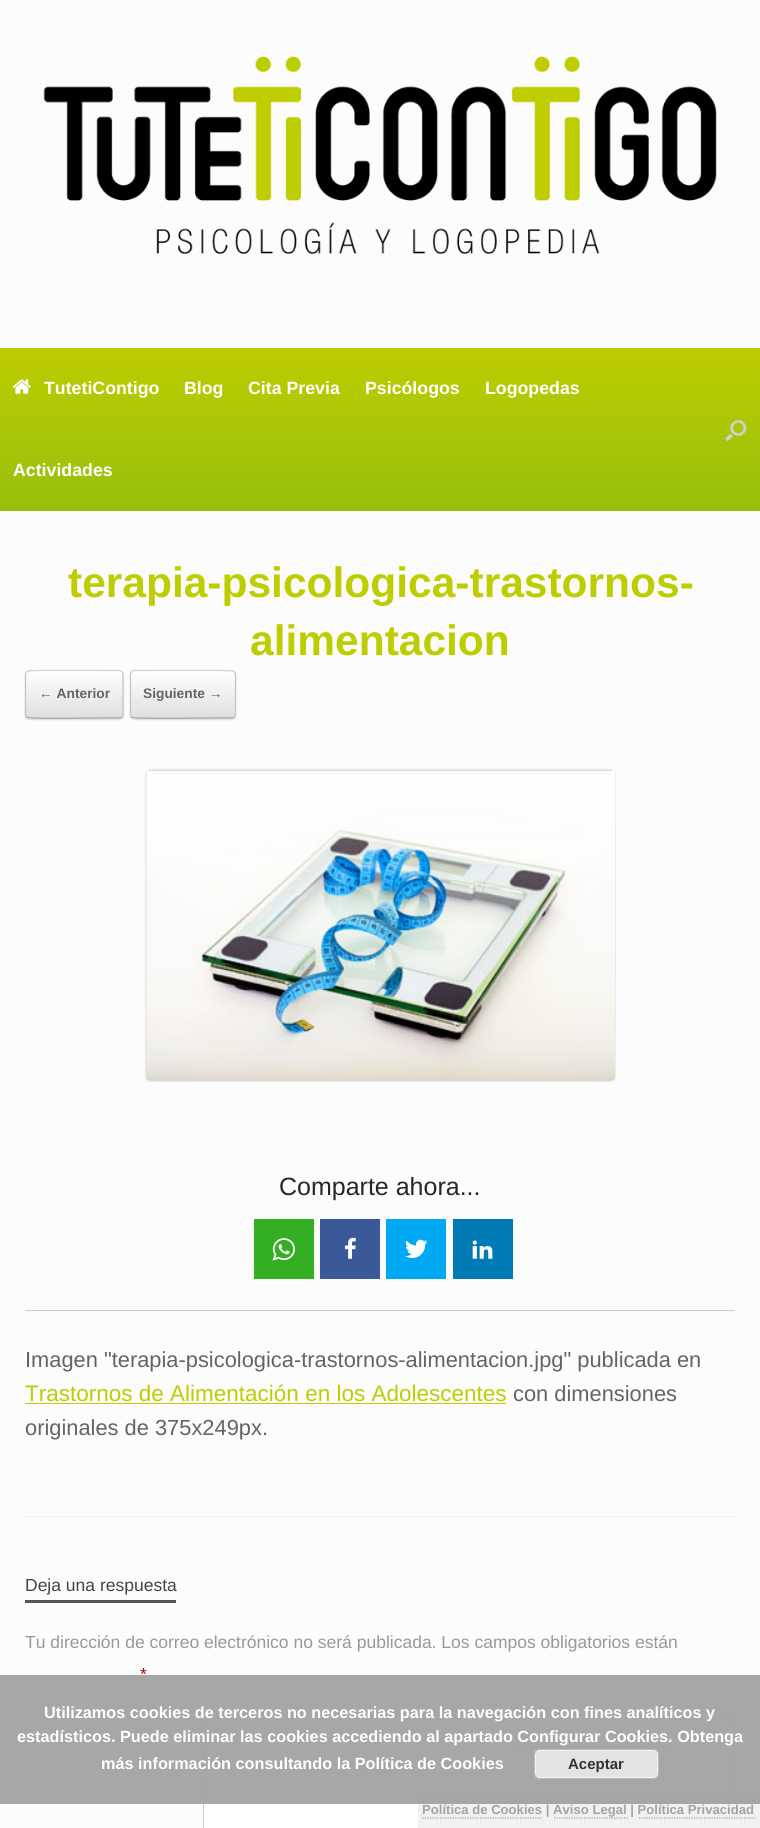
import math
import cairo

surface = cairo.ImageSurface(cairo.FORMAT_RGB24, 760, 1828)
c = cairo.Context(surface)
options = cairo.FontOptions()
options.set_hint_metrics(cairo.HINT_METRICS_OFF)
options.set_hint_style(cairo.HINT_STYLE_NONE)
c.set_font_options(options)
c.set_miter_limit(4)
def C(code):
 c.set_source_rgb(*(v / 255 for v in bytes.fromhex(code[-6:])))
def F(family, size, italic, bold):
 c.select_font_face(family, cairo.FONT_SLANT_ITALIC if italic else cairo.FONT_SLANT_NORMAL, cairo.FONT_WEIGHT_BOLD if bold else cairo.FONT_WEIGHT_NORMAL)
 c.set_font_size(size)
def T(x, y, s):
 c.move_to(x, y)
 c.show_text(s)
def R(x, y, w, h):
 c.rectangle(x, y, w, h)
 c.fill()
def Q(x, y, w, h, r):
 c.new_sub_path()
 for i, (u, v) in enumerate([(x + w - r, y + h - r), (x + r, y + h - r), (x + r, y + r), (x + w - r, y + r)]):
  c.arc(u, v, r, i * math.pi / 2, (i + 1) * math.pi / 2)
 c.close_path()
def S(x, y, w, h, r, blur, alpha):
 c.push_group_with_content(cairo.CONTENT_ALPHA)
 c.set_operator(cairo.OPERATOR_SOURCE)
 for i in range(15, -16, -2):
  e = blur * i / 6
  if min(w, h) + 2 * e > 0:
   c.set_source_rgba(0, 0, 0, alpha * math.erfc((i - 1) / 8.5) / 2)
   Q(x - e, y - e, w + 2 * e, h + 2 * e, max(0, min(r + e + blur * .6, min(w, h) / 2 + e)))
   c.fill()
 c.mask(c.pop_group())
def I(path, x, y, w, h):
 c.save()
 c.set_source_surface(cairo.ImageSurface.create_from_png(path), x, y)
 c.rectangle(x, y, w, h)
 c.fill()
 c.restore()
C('fcfcfc')
c.paint()
I('1.png',43,56,674,198)
gradient = cairo.LinearGradient(380,347,380,511)
gradient.add_color_stop_rgba(0,0.741,0.804,0,1)
gradient.add_color_stop_rgba(1,0.592,0.749,0.051,1)
c.set_source(gradient)
R(0,348,760,163)
I('2.png',12,379,19,15)
F('Liberation Sans',17.75,0,1)
C('ffffff')
T(44,394,'TutetiContigo')
T(184,394,'Blog')
T(248,394,'Cita Previa')
T(365,394,'Psicólogos')
T(485,394,'Logopedas')
T(13,476,'Actividades')
I('3.png',725,420,22,22)
C('eeeeee')
R(25,1516,710,1)
F('Liberation Sans',42.5,0,1)
C('bdcd00')
T(68,597,'terapia-psicologica-trastornos-')
T(250,655,'alimentacion')
C('000000')
S(25,671,99,49,4,.5,.12)
c.save()
Q(25,670,99,49,4)
c.clip()
gradient = cairo.LinearGradient(26,671,26,625)
gradient.add_color_stop_rgba(0,0.875,0.875,0.875,1)
gradient.add_color_stop_rgba(1,1,1,1,1)
c.set_source(gradient)
R(25,670,99,1)
gradient = cairo.LinearGradient(26,718,26,671)
gradient.add_color_stop_rgba(0,0.875,0.875,0.875,1)
gradient.add_color_stop_rgba(1,1,1,1,1)
c.set_source(gradient)
R(25,671,99,47)
gradient = cairo.LinearGradient(26,764,26,718)
gradient.add_color_stop_rgba(0,0.875,0.875,0.875,1)
gradient.add_color_stop_rgba(1,1,1,1,1)
c.set_source(gradient)
R(25,718,99,1)
c.restore()
c.new_path()
c.move_to(26.5,671.5)
c.line_to(27,671.5)
c.curve_to(29,669.5,96.5,670.5,105,670.5)
c.line_to(120,670.5)
c.line_to(122,671.5)
C('d2d2d2')
c.set_line_width(1.2)
c.stroke()
c.new_path()
c.move_to(122,671.5)
c.line_to(123,674)
c.line_to(123,715)
c.line_to(122,717)
C('c3c3c3')
c.stroke()
c.new_path()
c.move_to(122,717)
c.line_to(120,718)
c.line_to(105,718)
c.curve_to(96.5,718,29,719,27,717.5)
c.line_to(26.5,717)
C('9f9f9f')
c.stroke()
c.new_path()
c.move_to(26.5,717)
c.line_to(25.5,715)
c.line_to(25.5,674)
c.line_to(26.5,671.5)
C('c3c3c3')
c.stroke()
F('Liberation Sans',13.75,0,1)
C('646464')
T(39,698,'← Anterior')
C('000000')
S(130,671,106,49,4,.5,.12)
c.save()
Q(130,670,106,49,4)
c.clip()
gradient = cairo.LinearGradient(131,671,131,625)
gradient.add_color_stop_rgba(0,0.875,0.875,0.875,1)
gradient.add_color_stop_rgba(1,1,1,1,1)
c.set_source(gradient)
R(130,670,106,1)
gradient = cairo.LinearGradient(131,718,131,671)
gradient.add_color_stop_rgba(0,0.875,0.875,0.875,1)
gradient.add_color_stop_rgba(1,1,1,1,1)
c.set_source(gradient)
R(130,671,106,47)
gradient = cairo.LinearGradient(131,764,131,718)
gradient.add_color_stop_rgba(0,0.875,0.875,0.875,1)
gradient.add_color_stop_rgba(1,1,1,1,1)
c.set_source(gradient)
R(130,718,106,1)
c.restore()
c.new_path()
c.move_to(131.5,671.5)
c.line_to(134,670.5)
c.line_to(150,670.5)
c.curve_to(159,670.5,232.5,669.5,234.5,671.5)
C('d2d2d2')
c.stroke()
c.new_path()
c.move_to(234.5,671.5)
c.line_to(235.5,674)
c.line_to(235.5,715)
c.line_to(234.5,717)
C('c3c3c3')
c.stroke()
c.new_path()
c.move_to(234.5,717)
c.line_to(232.5,718)
c.line_to(216,718)
c.curve_to(207,718,134,719,132,717.5)
c.line_to(131.5,717)
C('9f9f9f')
c.stroke()
c.new_path()
c.move_to(131.5,717)
c.line_to(130.5,715)
c.line_to(130.5,674)
c.line_to(131.5,671.5)
C('c3c3c3')
c.stroke()
C('646464')
T(143,698,'Siguiente →')
C('000000')
S(146,770,469,311,4,1,.18)
I('4.png',146,771,469,309)
F('Liberation Sans',25,0,0)
C('272727')
T(279,1195,'Comparte ahora...')
C('34af23')
R(254,1219,60,60)
I('5.png',272,1238,23,23)
C('3b5998')
R(320,1219,60,60)
I('6.png',344,1237,12,22)
C('00a9f1')
R(386,1219,60,60)
I('7.png',405,1239,23,20)
C('007bb6')
R(453,1219,60,60)
I('8.png',472,1240,21,19)
C('cccccc')
R(25,1310,710,1)
F('Liberation Sans',21.85,0,0)
C('646464')
T(25,1367,'Imagen "terapia-psicologica-trastornos-alimentacion.jpg" publicada en')
F('Liberation Sans',22.5,0,0)
C('bdcd00')
T(25,1401,'Trastornos de Alimentación en los Adolescentes')
R(25,1403,481,1)
F('Liberation Sans',21.85,0,0)
C('646464')
T(513,1401,'con dimensiones')
T(25,1435,'originales de 375x249px.')
C('555555')
R(25,1600,151,3)
F('Liberation Sans',17.5,0,0)
C('444444')
T(25,1591,'Deja una respuesta')
C('999999')
T(25,1648,'Tu dirección de correo electrónico no será publicada. Los campos obligatorios están')
C('a40802')
T(140,1680,'*')
C('ffffff')
Q(203.5,1715.5,531,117,3.5)
c.fill_preserve()
C('cccccc')
c.set_line_width(1)
c.stroke()
C('f1f1f1')
R(418,1793,342,35)
c.set_source_rgba(0.639,0.639,0.639,0.95)
R(0,1675,760,129)
F('Liberation Sans',16.25,0,1)
C('ffffff')
T(44,1718,'Utilizamos cookies de terceros no necesarias para la navegación con fines analíticos y')
T(17,1742,'estadísticos. Puede eliminar las cookies accediendo al apartado Configurar Cookies. Obtenga')
c.new_path()
c.move_to(517.5,1747)
c.line_to(667.5,1747)
C('a3a3a3')
c.set_line_width(1.2)
c.set_dash([1.25,1.25])
c.stroke()
C('ffffff')
T(101,1769,'más información consultando la Política de Cookies')
C('e3e3e3')
Q(534,1749,125,30,6)
c.fill()
Q(535.5,1750.5,122,27,4.5)
C('f6f6f6')
c.set_line_width(1)
c.set_dash([])
c.stroke()
Q(534.5,1749.5,124,29,5.5)
C('bbbbbb')
c.stroke()
F('Liberation Sans',15,0,1)
C('333333')
T(568,1769,'Aceptar')
c.new_path()
c.move_to(355,1773)
c.line_to(504,1773)
C('a3a3a3')
c.set_line_width(1.2)
c.set_dash([1.25,1.25])
c.stroke()
F('Liberation Sans',13.1,0,1)
T(422,1814,'Política de Cookies | Aviso Legal | Política Privacidad')
c.new_path()
c.move_to(422.5,1818)
c.line_to(542.5,1818)
c.stroke()
c.new_path()
c.move_to(554,1818)
c.line_to(627.5,1818)
c.stroke()
c.new_path()
c.move_to(639,1818)
c.line_to(755,1818)
c.stroke()
surface.write_to_png('o.png')
